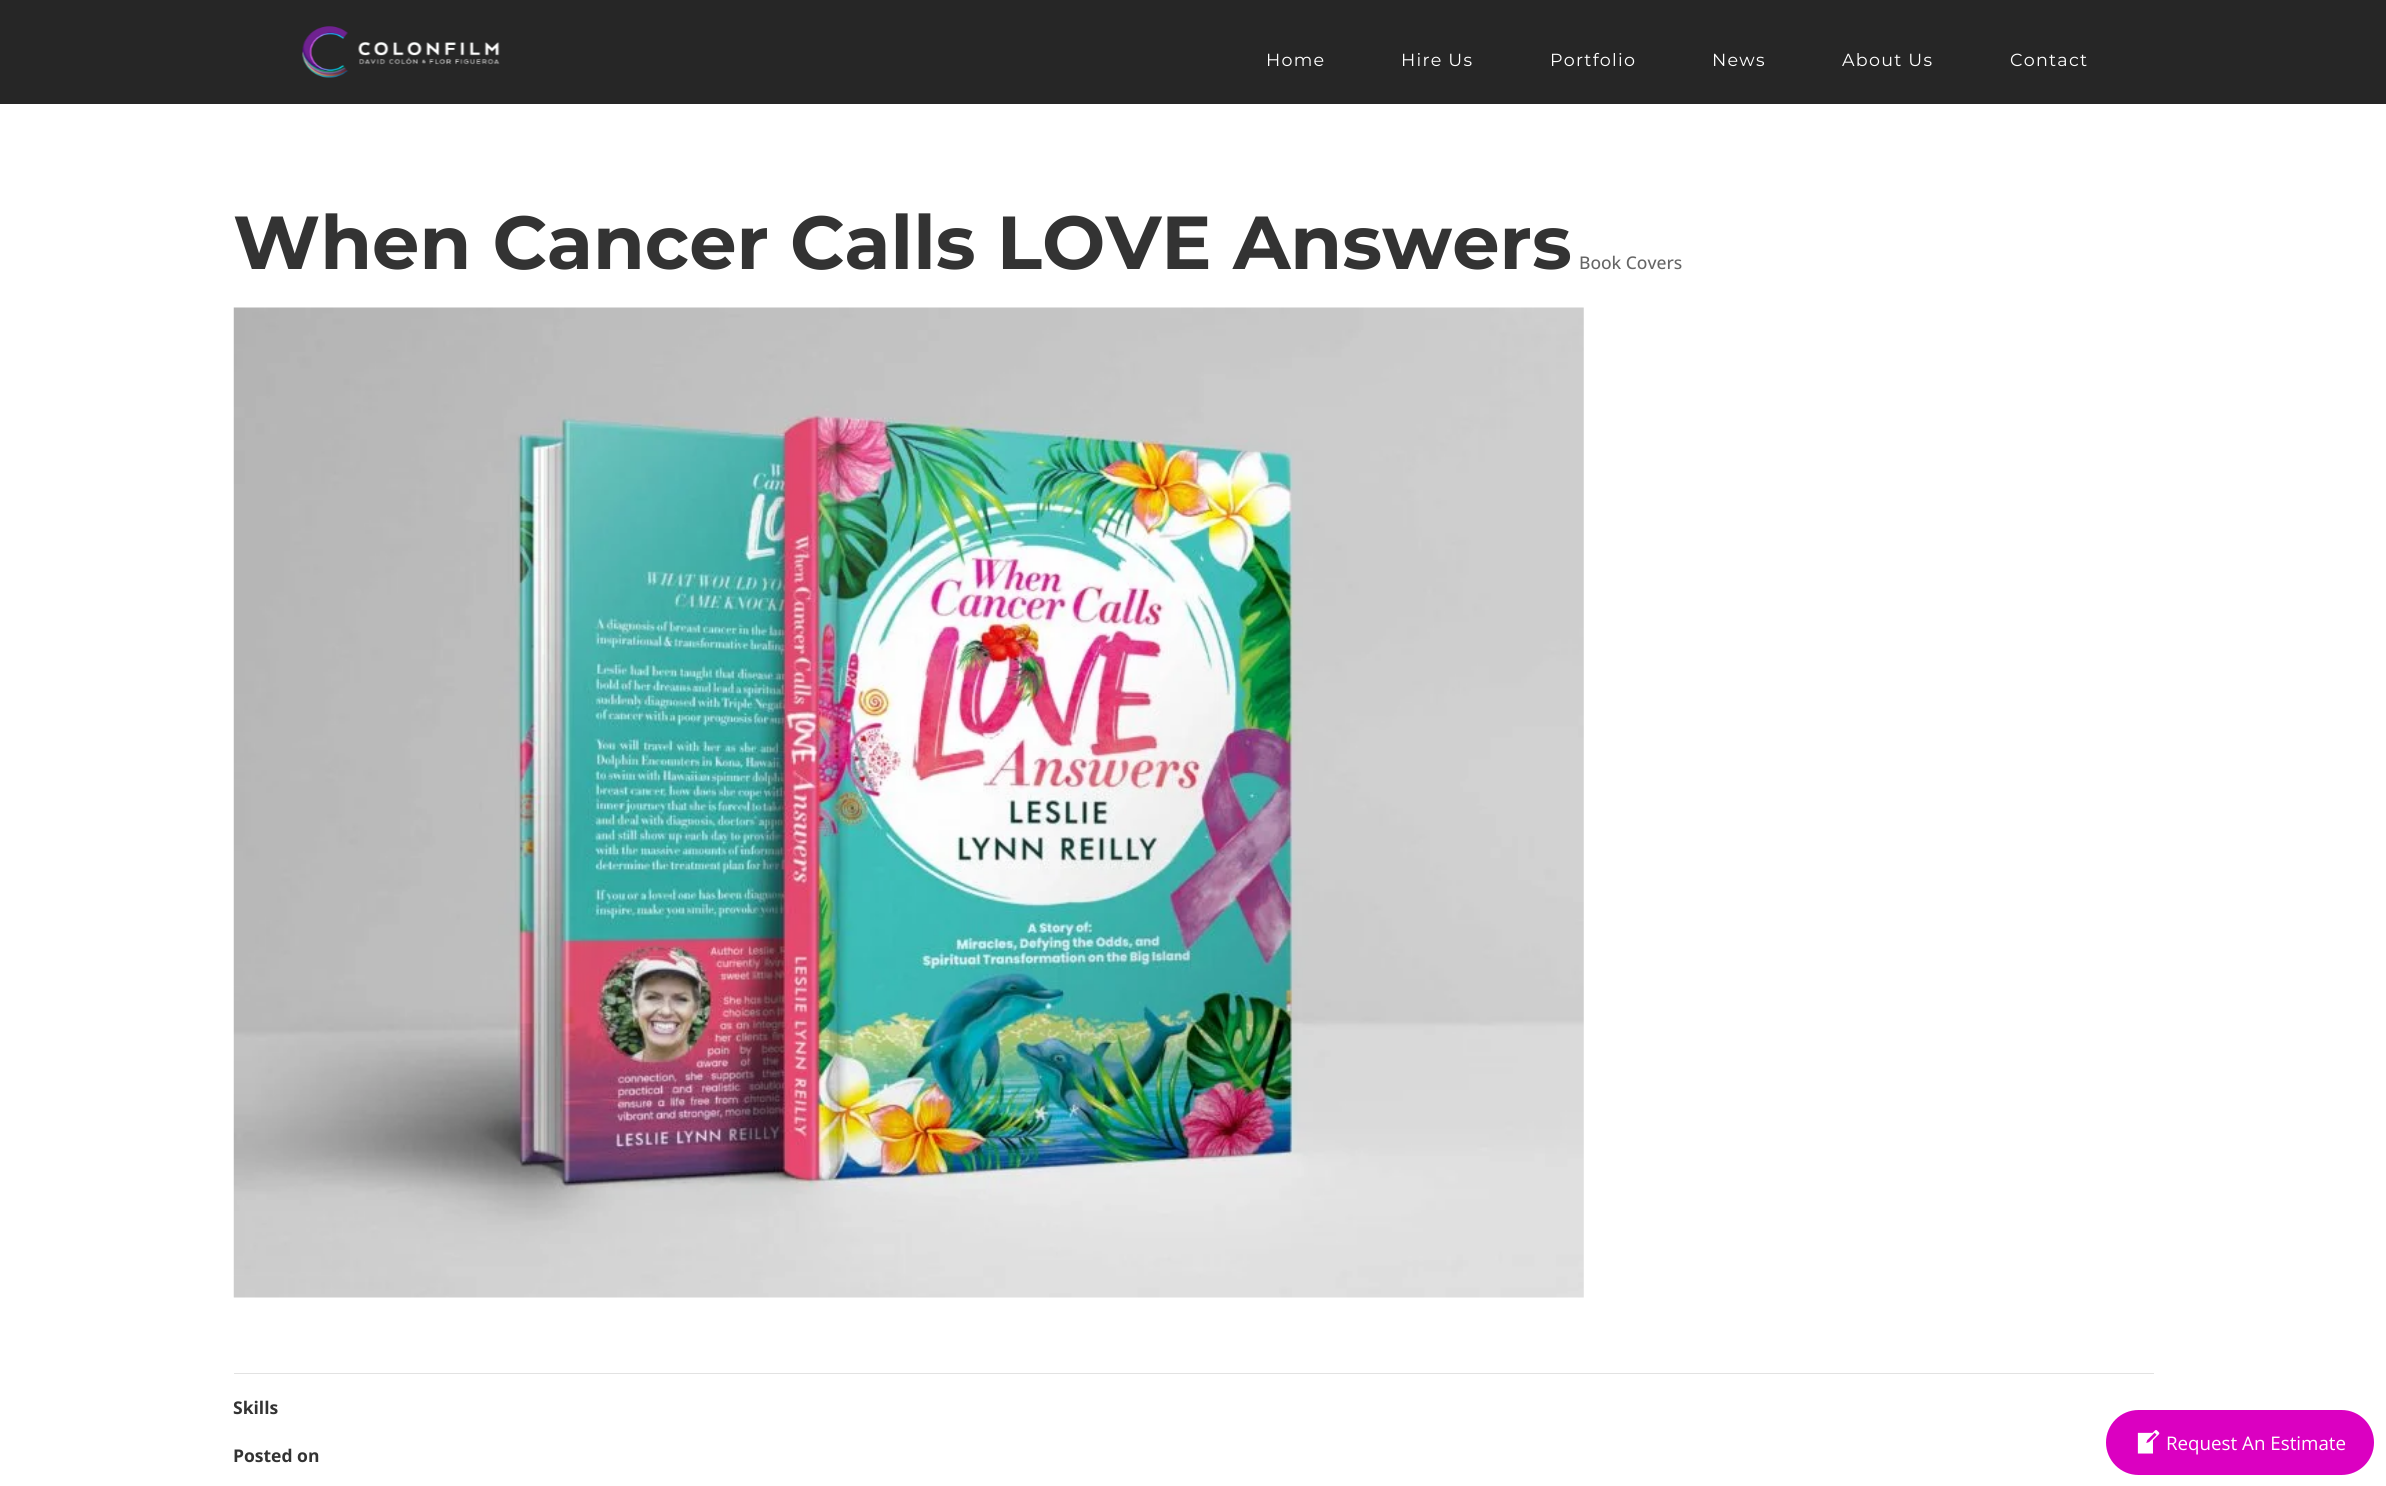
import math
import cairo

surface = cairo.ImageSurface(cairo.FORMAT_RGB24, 2386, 1486)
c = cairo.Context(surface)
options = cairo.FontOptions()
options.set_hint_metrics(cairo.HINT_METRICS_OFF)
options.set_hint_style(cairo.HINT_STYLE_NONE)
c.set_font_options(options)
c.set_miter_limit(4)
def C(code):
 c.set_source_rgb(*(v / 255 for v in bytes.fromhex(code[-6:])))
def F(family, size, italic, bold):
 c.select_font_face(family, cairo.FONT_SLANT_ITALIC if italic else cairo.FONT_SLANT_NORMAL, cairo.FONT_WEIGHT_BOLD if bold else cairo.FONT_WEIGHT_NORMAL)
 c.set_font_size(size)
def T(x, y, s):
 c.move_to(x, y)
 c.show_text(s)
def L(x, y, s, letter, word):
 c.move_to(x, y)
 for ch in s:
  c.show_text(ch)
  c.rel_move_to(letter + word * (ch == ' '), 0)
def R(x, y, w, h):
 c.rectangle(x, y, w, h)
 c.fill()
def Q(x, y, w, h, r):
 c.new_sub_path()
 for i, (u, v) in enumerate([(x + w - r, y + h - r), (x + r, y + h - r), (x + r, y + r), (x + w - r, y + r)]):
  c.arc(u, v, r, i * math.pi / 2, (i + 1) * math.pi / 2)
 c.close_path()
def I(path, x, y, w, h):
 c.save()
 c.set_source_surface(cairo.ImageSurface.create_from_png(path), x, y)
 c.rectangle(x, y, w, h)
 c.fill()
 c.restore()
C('ffffff')
c.paint()
C('262626')
R(0,0,2386,104)
I('1.png',302,26,198,52)
F('Montserrat',17.5,0,0)
C('ffffff')
L(1266,66,'Home',1.25,0)
L(1401,66,'Hire Us',1.25,0)
L(1550,66,'Portfolio',1.25,0)
L(1712,66,'News',1.25,0)
L(1842,66,'About Us',1.25,0)
L(2010,66,'Contact',1.25,0)
F('Montserrat',75,0,1)
C('333333')
T(233,269,'When Cancer Calls LOVE Answers')
F('Open Sans Medium',17.5,0,0)
C('666666')
T(1579,269,'Book Covers')
I('2.png',233,307,1351,991)
C('e2e2e2')
R(234,1373,1920,1)
F('Open Sans',17.5,0,1)
C('333333')
T(233,1414,'Skills')
T(233,1462,'Posted on')
C('db00c1')
Q(2106,1410,268,65,32.5)
c.fill()
I('3.png',2137,1430,23,24)
F('Open Sans',18.75,0,0)
C('ffffff')
T(2166,1450,'Request An Estimate')
surface.write_to_png('o.png')
